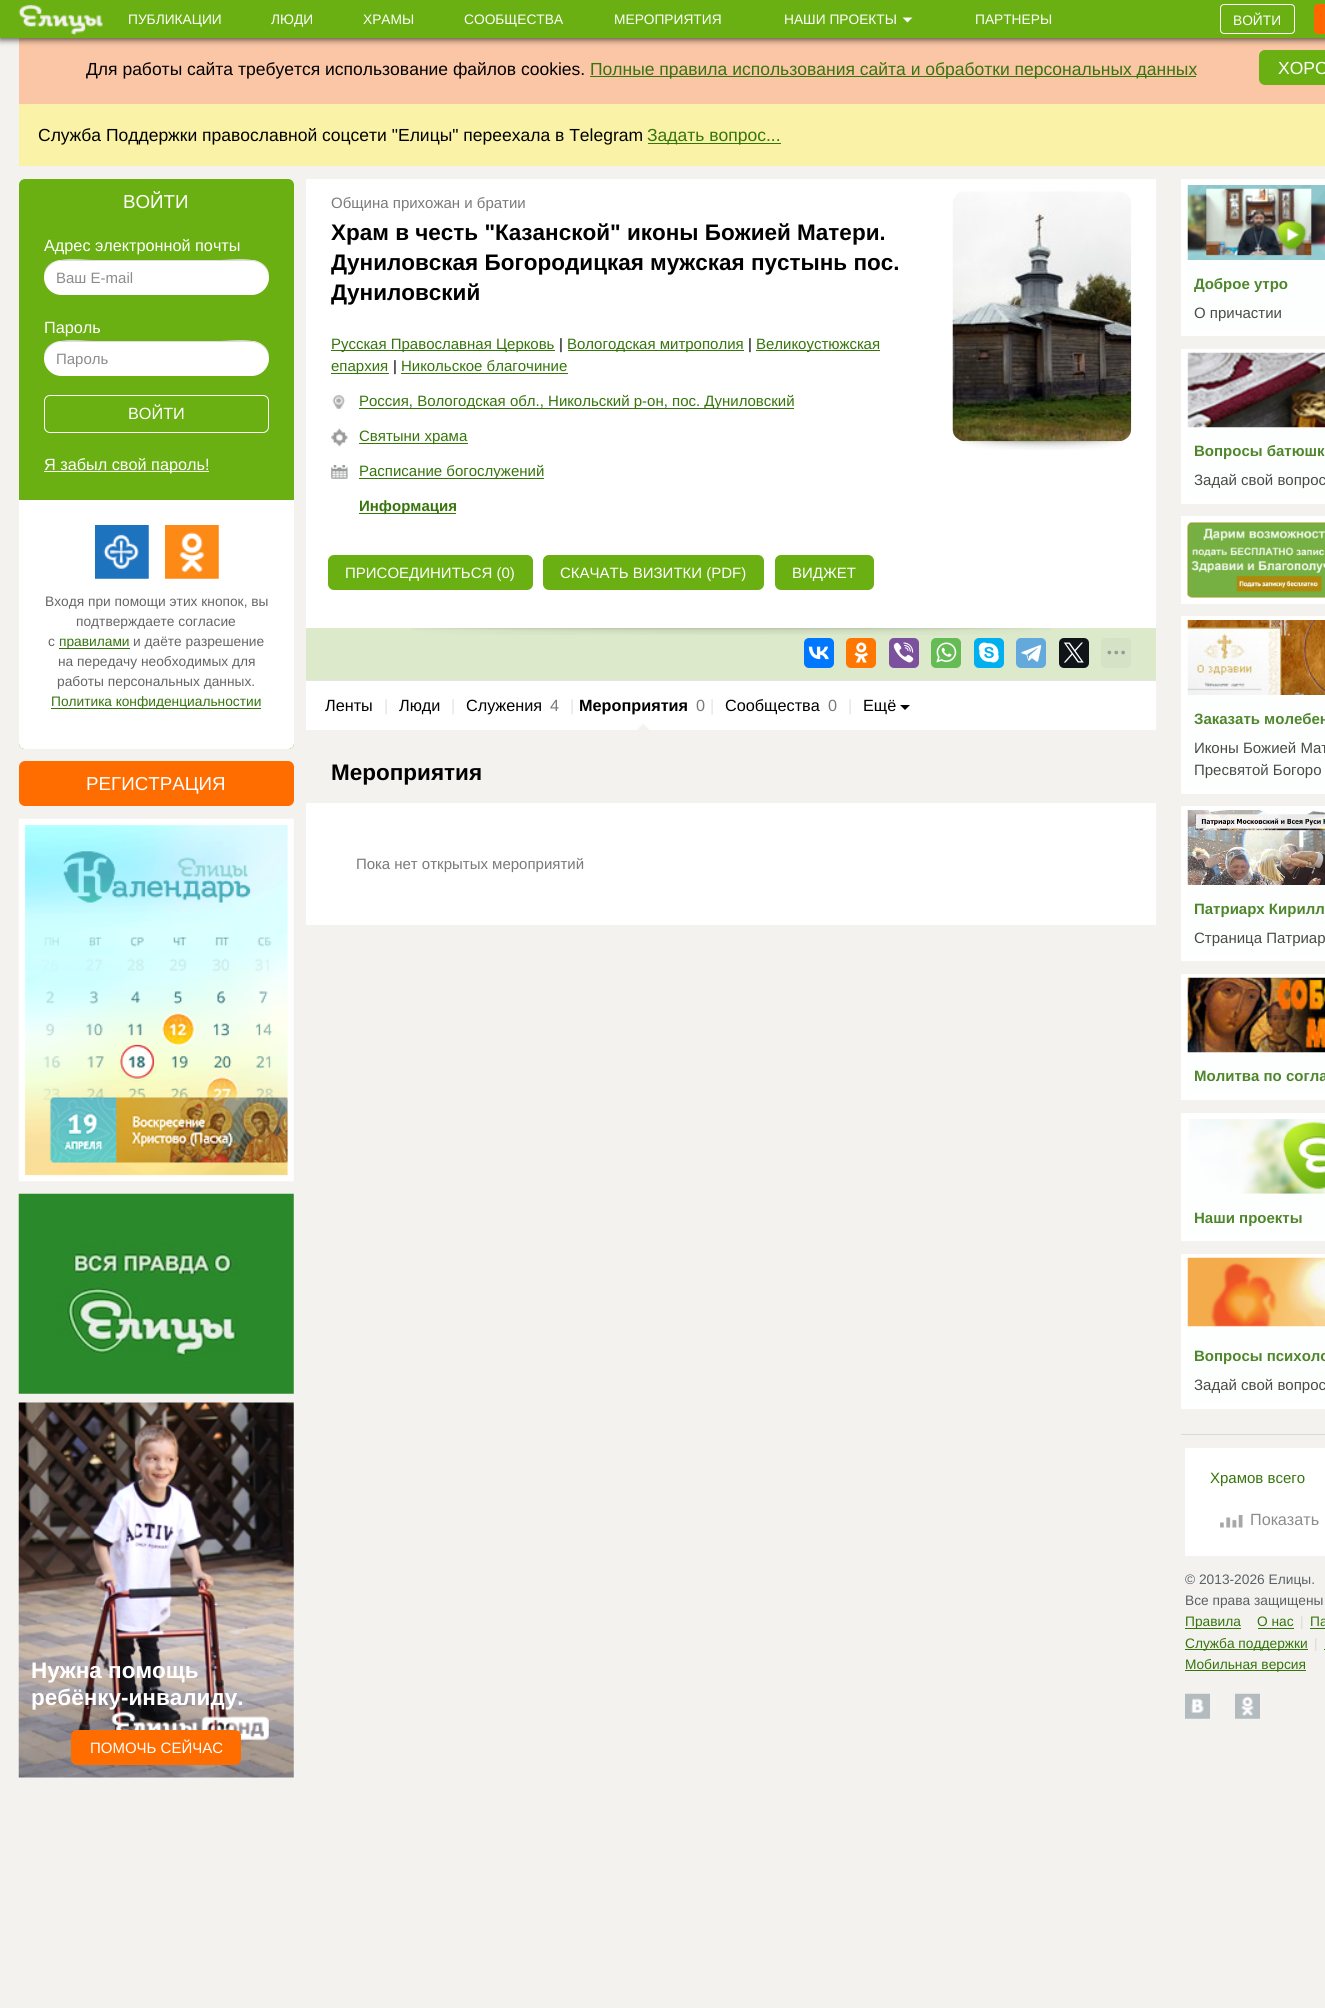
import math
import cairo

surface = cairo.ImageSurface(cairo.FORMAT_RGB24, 1325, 2008)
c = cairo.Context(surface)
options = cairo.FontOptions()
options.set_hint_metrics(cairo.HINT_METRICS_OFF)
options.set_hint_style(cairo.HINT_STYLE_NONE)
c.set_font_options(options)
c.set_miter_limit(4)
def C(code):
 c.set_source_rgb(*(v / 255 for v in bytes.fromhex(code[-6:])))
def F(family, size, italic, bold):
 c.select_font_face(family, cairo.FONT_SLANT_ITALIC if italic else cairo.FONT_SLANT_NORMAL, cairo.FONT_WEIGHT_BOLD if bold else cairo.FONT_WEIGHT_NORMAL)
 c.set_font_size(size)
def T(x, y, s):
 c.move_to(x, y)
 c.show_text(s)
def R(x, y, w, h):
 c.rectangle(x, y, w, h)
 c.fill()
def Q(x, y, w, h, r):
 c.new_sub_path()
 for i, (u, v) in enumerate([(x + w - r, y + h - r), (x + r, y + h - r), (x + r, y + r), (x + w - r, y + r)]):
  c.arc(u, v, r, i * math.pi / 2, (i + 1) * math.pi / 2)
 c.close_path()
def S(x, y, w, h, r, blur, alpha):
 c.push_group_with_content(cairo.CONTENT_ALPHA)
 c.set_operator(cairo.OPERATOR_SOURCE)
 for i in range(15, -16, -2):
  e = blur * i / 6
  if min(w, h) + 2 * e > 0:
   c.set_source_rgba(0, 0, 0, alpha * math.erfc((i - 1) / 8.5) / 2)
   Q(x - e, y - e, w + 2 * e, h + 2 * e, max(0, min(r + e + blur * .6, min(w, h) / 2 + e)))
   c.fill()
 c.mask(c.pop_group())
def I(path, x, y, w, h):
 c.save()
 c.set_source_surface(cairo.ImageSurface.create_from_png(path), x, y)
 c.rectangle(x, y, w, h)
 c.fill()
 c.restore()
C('f3f2ef')
c.paint()
C('fac6a6')
R(19,38,1306,66)
C('000000')
S(0,3,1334,37,0,3,.6)
C('6bb012')
R(0,0,1325,38)
I('1.png',18,5,85,30)
F('Liberation Sans',13.75,0,0)
C('ffffff')
T(128,24,'ПУБЛИКАЦИИ')
T(271,24,'ЛЮДИ')
T(363,24,'ХРАМЫ')
T(464,24,'СООБЩЕСТВА')
T(614,24,'МЕРОПРИЯТИЯ')
T(784,24,'НАШИ ПРОЕКТЫ')
c.new_path()
c.move_to(902.5,17.5)
c.line_to(912.5,17.5)
c.line_to(907.5,22.5)
c.close_path()
c.fill()
T(975,24,'ПАРТНЕРЫ')
Q(1220.5,4.5,74,29,3.5)
c.set_line_width(1)
c.stroke()
T(1233,25,'ВОЙТИ')
C('ff6600')
Q(1314.5,4.5,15,29,3.5)
c.fill_preserve()
c.stroke()
F('Liberation Sans',17.5,0,0)
C('000000')
T(86,75,'Для работы сайта требуется использование файлов cookies.')
C('36750c')
R(590,76,606,1)
T(590,75,'Полные правила использования сайта и обработки персональных данных')
C('6bb012')
Q(1259,50,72,35,6)
c.fill()
C('ffffff')
T(1278,74,'ХОРО')
C('faf2a6')
R(19,104,1306,62)
C('000000')
T(38,141,'Служба Поддержки православной соцсети "Елицы" переехала в Telegram')
C('36750c')
R(648,143,133,1)
T(647,141,'Задать вопрос...')
C('6bb012')
Q(19,179,275,570,6)
c.fill()
F('Liberation Sans',18.75,0,0)
C('ffffff')
T(123,208,'ВОЙТИ')
C('6bb012')
c.new_path()
c.move_to(19,224)
c.line_to(294,224)
c.line_to(294,743)
c.curve_to(294,746.5,291.5,749,288,749)
c.line_to(25,749)
c.curve_to(21.5,749,19,746.5,19,743)
c.close_path()
c.fill()
F('Liberation Sans',16.25,0,0)
C('ffffff')
T(44,251,'Адрес электронной почты')
Q(44,260,225,35,17.5)
c.fill()
C('dddddd')
c.new_path()
c.move_to(61,261)
c.line_to(251,261)
c.curve_to(261,261,269,269,269,278)
c.curve_to(270,253,233,260,220,260)
c.line_to(93,260)
c.curve_to(80,260,43,253,44,278)
c.curve_to(44,269,52,261,61,261)
c.close_path()
c.fill()
F('Liberation Sans',15,0,0)
C('8c8c8c')
T(56,283,'Ваш E-mail')
F('Liberation Sans',16.25,0,0)
C('ffffff')
T(44,333,'Пароль')
Q(44,341,225,35,17.5)
c.fill()
C('dddddd')
c.new_path()
c.move_to(61,342)
c.line_to(251,342)
c.curve_to(261,342,269,350,269,359)
c.curve_to(270,334,233,341,220,341)
c.line_to(93,341)
c.curve_to(80,341,43,334,44,359)
c.curve_to(44,350,52,342,61,342)
c.close_path()
c.fill()
F('Liberation Sans',15,0,0)
C('8c8c8c')
T(56,364,'Пароль')
Q(44.5,395.5,224,37,5.5)
C('ffffff')
c.stroke()
F('Liberation Sans',16.25,0,0)
T(128,419,'ВОЙТИ')
R(44,471,165,1)
T(44,470,'Я забыл свой пароль!')
c.new_path()
c.move_to(19,500)
c.line_to(294,500)
c.line_to(294,743)
c.curve_to(294,746.5,291.5,749,288,749)
c.line_to(25,749)
c.curve_to(21.5,749,19,746.5,19,743)
c.close_path()
c.fill()
I('2.png',95,525,54,54)
I('3.png',165,525,54,54)
F('Liberation Sans',13.75,0,0)
C('666666')
T(45,606,'Входя при помощи этих кнопок, вы')
T(76,626,'подтверждаете согласие')
T(48,646,'с')
C('36750c')
R(59,648,71,1)
T(59,646,'правилами')
C('666666')
T(133,646,'и даёте разрешение')
T(58,666,'на передачу необходимых для')
T(57,686,'работы персональных данных.')
C('36750c')
R(51,708,210,1)
T(51,706,'Политика конфиденциальностии')
C('ff6c00')
Q(19,761,275,45,6)
c.fill()
F('Liberation Sans',18.75,0,0)
C('ffffff')
T(86,790,'РЕГИСТРАЦИЯ')
I('4.png',18,818,276,364)
I('5.png',18,1193,276,201)
I('6.png',18,1402,276,376)
F('Liberation Sans',22.5,0,1)
T(31,1678,'Нужна помощь')
T(31,1705,'ребёнку-инвалиду.')
C('ff6c00')
Q(71,1730,170,35,6)
c.fill()
F('Liberation Sans',15,0,0)
C('ffffff')
T(90,1753,'ПОМОЧЬ СЕЙЧАС')
R(306,179,850,449)
C('7a7a7a')
T(331,208,'Община прихожан и братии')
F('Liberation Sans',22.5,0,1)
C('000000')
T(331,240,'Храм в честь "Казанской" иконы Божией Матери.')
T(331,270,'Дуниловская Богородицкая мужская пустынь пос.')
T(331,300,'Дуниловский')
C('36750c')
R(331,350,224,1)
F('Liberation Sans',15,0,0)
T(331,349,'Русская Православная Церковь')
C('000000')
T(559,349,'|')
C('36750c')
R(568,350,176,1)
T(567,349,'Вологодская митрополия')
C('000000')
T(748,349,'|')
C('36750c')
R(756,350,124,1)
T(756,349,'Великоустюжская')
R(331,373,58,1)
T(331,371,'епархия')
C('000000')
T(393,371,'|')
C('36750c')
T(401,371,'Никольское благочиние')
R(401,373,167,1)
I('7.png',332,395,13,14)
R(359,408,435,1)
T(359,406,'Россия, Вологодская обл., Никольский р-он, пос. Дуниловский')
I('8.png',331,428,17,19)
R(359,443,109,1)
T(359,441,'Святыни храма')
I('9.png',331,465,17,14)
R(359,478,185,1)
T(359,476,'Расписание богослужений')
R(359,513,97,1)
F('Liberation Sans',15,0,1)
T(359,511,'Информация')
I('10.png',959,440,165,10)
I('11.png',952,191,180,251)
C('6bb012')
Q(328,555,205,35,6)
c.fill()
F('Liberation Sans',15,0,0)
C('ffffff')
T(345,578,'ПРИСОЕДИНИТЬСЯ (0)')
C('6bb012')
Q(543,555,221,35,6)
c.fill()
C('ffffff')
T(560,578,'СКАЧАТЬ ВИЗИТКИ (PDF)')
C('6bb012')
Q(775,555,99,35,6)
c.fill()
C('ffffff')
T(792,578,'ВИДЖЕТ')
C('dce9cb')
R(306,628,850,52)
I('12.png',411,628,640,7)
C('0077ff')
Q(804,638,30,30,5)
c.fill()
I('13.png',808,646,21,14)
C('ff7700')
Q(846,638,30,30,5)
c.fill()
I('14.png',854,642,14,21)
C('7b519d')
Q(889,638,30,30,5)
c.fill()
I('15.png',893,642,21,21)
C('65bc54')
Q(931,638,30,30,5)
c.fill()
I('16.png',936,642,21,21)
C('00aff0')
Q(974,638,30,30,5)
c.fill()
I('17.png',978,642,21,21)
C('64a9dc')
Q(1016,638,30,30,5)
c.fill()
I('18.png',1021,645,21,17)
C('0f1419')
Q(1059,638,30,30,5)
c.fill()
I('19.png',1063,642,21,21)
C('d5e2c5')
Q(1101,638,30,30,5)
c.fill()
I('20.png',1107,650,18,5)
C('ffffff')
R(306,681,850,49)
C('e5e5e5')
R(306,680,850,1)
F('Liberation Sans',16.25,0,0)
C('000000')
T(325,711,'Ленты')
C('e4e4e4')
T(384,711,'|')
C('000000')
T(399,711,'Люди')
C('e4e4e4')
T(451,711,'|')
C('000000')
T(466,711,'Служения')
C('7a7a7a')
T(550,711,'4')
C('e4e4e4')
T(570,711,'|')
F('Liberation Sans',16.25,0,1)
C('000000')
T(579,711,'Мероприятия')
F('Liberation Sans',16.25,0,0)
C('7a7a7a')
T(696,711,'0')
I('21.png',637,724,12,6)
C('e4e4e4')
T(710,711,'|')
C('000000')
T(725,711,'Сообщества')
C('7a7a7a')
T(828,711,'0')
C('e4e4e4')
T(848,711,'|')
C('000000')
T(863,711,'Ещё')
c.new_path()
c.move_to(900,705)
c.line_to(910,705)
c.line_to(905,710)
c.close_path()
c.fill()
F('Liberation Sans',22.5,0,1)
T(331,780,'Мероприятия')
C('ffffff')
R(306,803,850,122)
F('Liberation Sans',15,0,0)
C('7a7a7a')
T(356,869,'Пока нет открытых мероприятий')
C('fdffff')
c.rectangle(1184,182,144,151)
c.fill_preserve()
C('ffffff')
c.set_line_width(6)
c.stroke()
I('22.png',1187,185,138,75)
F('Liberation Sans',15,0,1)
C('4f862b')
T(1194,289,'Доброе утро')
F('Liberation Sans',15,0,0)
C('4b4b46')
T(1194,318,'О причастии')
C('fdffff')
c.rectangle(1184,352,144,149)
c.fill_preserve()
C('ffffff')
c.stroke()
I('23.png',1187,352,138,76)
F('Liberation Sans',15,0,1)
C('4f862b')
T(1194,456,'Вопросы батюшк')
F('Liberation Sans',15,0,0)
C('4b4b46')
T(1194,485,'Задай свой вопрос')
C('fdffff')
c.rectangle(1184,519,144,82)
c.fill_preserve()
C('ffffff')
c.stroke()
I('24.png',1187,522,138,76)
C('fdffff')
c.rectangle(1184,619,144,172)
c.fill_preserve()
C('ffffff')
c.stroke()
I('25.png',1187,620,138,75)
F('Liberation Sans',15,0,1)
C('4f862b')
T(1194,724,'Заказать молебен')
F('Liberation Sans',15,0,0)
C('4b4b46')
T(1194,753,'Иконы Божией Мат')
T(1194,775,'Пресвятой Богоро')
C('fdffff')
c.rectangle(1184,809,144,149)
c.fill_preserve()
C('ffffff')
c.stroke()
I('26.png',1187,810,138,75)
F('Liberation Sans',15,0,1)
C('4f862b')
T(1194,914,'Патриарх Кирилл')
F('Liberation Sans',15,0,0)
C('4b4b46')
T(1194,943,'Страница Патриар')
C('fdffff')
c.rectangle(1184,977,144,120)
c.fill_preserve()
C('ffffff')
c.stroke()
I('27.png',1187,977,138,76)
F('Liberation Sans',15,0,1)
C('4f862b')
T(1194,1081,'Молитва по согла')
C('fdffff')
c.rectangle(1184,1116,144,122)
c.fill_preserve()
C('ffffff')
c.stroke()
I('28.png',1189,1119,136,75)
C('4f862b')
T(1194,1223,'Наши проекты')
C('fdffff')
c.rectangle(1184,1257,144,149)
c.fill_preserve()
C('ffffff')
c.stroke()
I('29.png',1187,1257,138,70)
C('4f862b')
T(1194,1361,'Вопросы психоло')
F('Liberation Sans',15,0,0)
C('4b4b46')
T(1194,1390,'Задай свой вопрос')
C('dad9d7')
R(1181,1434,144,1)
C('ffffff')
R(1185,1448,140,108)
C('36750c')
T(1210,1483,'Храмов всего')
I('30.png',1220,1515,23,13)
F('Liberation Sans',16.25,0,0)
C('8c8c8c')
T(1250,1525,'Показать')
F('Liberation Sans',13.75,0,0)
C('5a6166')
T(1185,1584,'© 2013-2026 Елицы.')
T(1185,1605,'Все права защищены')
C('36750c')
R(1185,1628,56,1)
T(1185,1626,'Правила')
T(1257,1626,'О нас')
R(1258,1628,36,1)
C('dad9d6')
T(1300,1626,'|')
C('36750c')
T(1310,1626,'Па')
R(1310,1628,15,1)
R(1185,1649,123,1)
T(1185,1648,'Служба поддержки')
C('dad9d6')
T(1314,1648,'|')
C('36750c')
R(1324,1649,1,1)
R(1185,1670,121,1)
T(1185,1669,'Мобильная версия')
I('31.png',1185,1693,25,26)
I('32.png',1235,1693,25,26)
surface.write_to_png('o.png')
